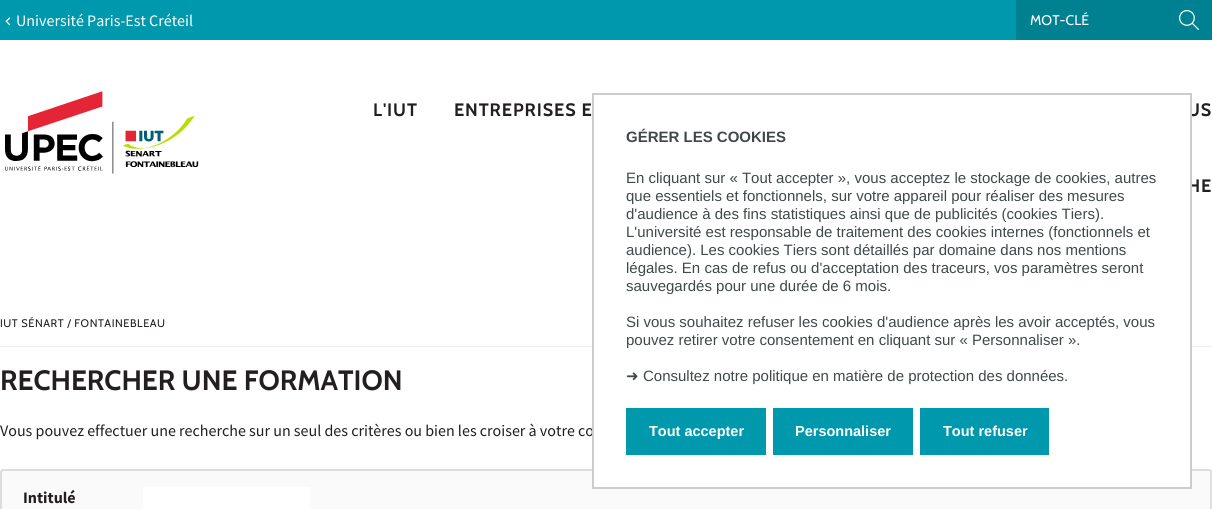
import math
import cairo

surface = cairo.ImageSurface(cairo.FORMAT_RGB24, 1212, 509)
c = cairo.Context(surface)
options = cairo.FontOptions()
options.set_hint_metrics(cairo.HINT_METRICS_OFF)
options.set_hint_style(cairo.HINT_STYLE_NONE)
c.set_font_options(options)
c.set_miter_limit(4)
def C(code):
 c.set_source_rgb(*(v / 255 for v in bytes.fromhex(code[-6:])))
def F(family, size, italic, bold):
 c.select_font_face(family, cairo.FONT_SLANT_ITALIC if italic else cairo.FONT_SLANT_NORMAL, cairo.FONT_WEIGHT_BOLD if bold else cairo.FONT_WEIGHT_NORMAL)
 c.set_font_size(size)
def T(x, y, s):
 c.move_to(x, y)
 c.show_text(s)
def L(x, y, s, letter, word):
 c.move_to(x, y)
 for ch in s:
  c.show_text(ch)
  c.rel_move_to(letter + word * (ch == ' '), 0)
def R(x, y, w, h):
 c.rectangle(x, y, w, h)
 c.fill()
def Q(x, y, w, h, r):
 c.new_sub_path()
 for i, (u, v) in enumerate([(x + w - r, y + h - r), (x + r, y + h - r), (x + r, y + r), (x + w - r, y + r)]):
  c.arc(u, v, r, i * math.pi / 2, (i + 1) * math.pi / 2)
 c.close_path()
def I(path, x, y, w, h):
 c.save()
 c.set_source_surface(cairo.ImageSurface.create_from_png(path), x, y)
 c.rectangle(x, y, w, h)
 c.fill()
 c.restore()
C('ffffff')
c.paint()
C('0098ac')
R(0,0,1016,40)
I('1.png',5,17,6,9)
F('Source Sans Pro',16,0,0)
C('ffffff')
T(16,26,'Université Paris-Est Créteil')
C('008192')
R(1016,0,196,40)
F('Cabin',14,0,0)
C('ffffff')
T(1030,25,'MOT-CLÉ')
I('2.png',1179,10,20,20)
I('3.png',5,91,194,83)
F('Cabin',18,0,1)
C('231f20')
L(373,116,'L\'IUT',.9,0)
L(454,116,'ENTREPRISES E',.9,0)
L(1187,116,'US',.9,0)
L(1187,192,'HE',.9,0)
C('ededed')
R(0,346,1212,1)
F('Cabin',11,0,0)
C('231f20')
L(0,327,'IUT SÉNART / FONTAINEBLEAU',.55,0)
F('Cabin',28,0,1)
T(0,390,'RECHERCHER UNE FORMATION')
F('Source Sans Pro',16,0,0)
T(0,436,'Vous pouvez effectuer une recherche sur un seul des critères ou bien les croiser à votre co')
C('fafafa')
Q(1,470,1210,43,2)
c.fill_preserve()
C('dddddd')
c.stroke()
F('Source Sans Pro',16,0,1)
C('231f20')
T(23,503,'Intitulé')
C('ffffff')
R(143,487,167,22)
R(594,103,596,384)
c.rectangle(593,94,598,394)
C('cccccc')
c.stroke()
F('Liberation Sans',15,0,1)
C('404849')
T(626,142,'GÉRER LES COOKIES')
F('Liberation Sans',15,0,0)
T(626,183,'En cliquant sur « Tout accepter », vous acceptez le stockage de cookies, autres')
T(626,201,'que essentiels et fonctionnels, sur votre appareil pour réaliser des mesures')
T(626,219,'d\'audience à des fins statistiques ainsi que de publicités (cookies Tiers).')
T(626,237,'L\'université est responsable de traitement des cookies internes (fonctionnels et')
T(626,255,'audience). Les cookies Tiers sont détaillés par domaine dans nos mentions')
T(626,273,'légales. En cas de refus ou d\'acceptation des traceurs, vos paramètres seront')
T(626,291,'sauvegardés pour une durée de 6 mois.')
T(626,327,'Si vous souhaitez refuser les cookies d\'audience après les avoir acceptés, vous')
T(626,345,'pouvez retirer votre consentement en cliquant sur « Personnaliser ».')
F('DejaVu Sans',15,0,0)
T(626,381,'➜')
F('Liberation Sans',15,0,0)
T(643,381,'Consultez notre politique en matière de protection des données.')
C('0098ac')
R(626,408,140,47)
F('Liberation Sans',14.5,0,1)
C('ffffff')
T(649,436,'Tout accepter')
C('0098ac')
R(773,408,140,47)
C('ffffff')
T(795,436,'Personnaliser')
C('0098ac')
R(920,408,129,47)
C('ffffff')
T(943,436,'Tout refuser')
surface.write_to_png('o.png')
